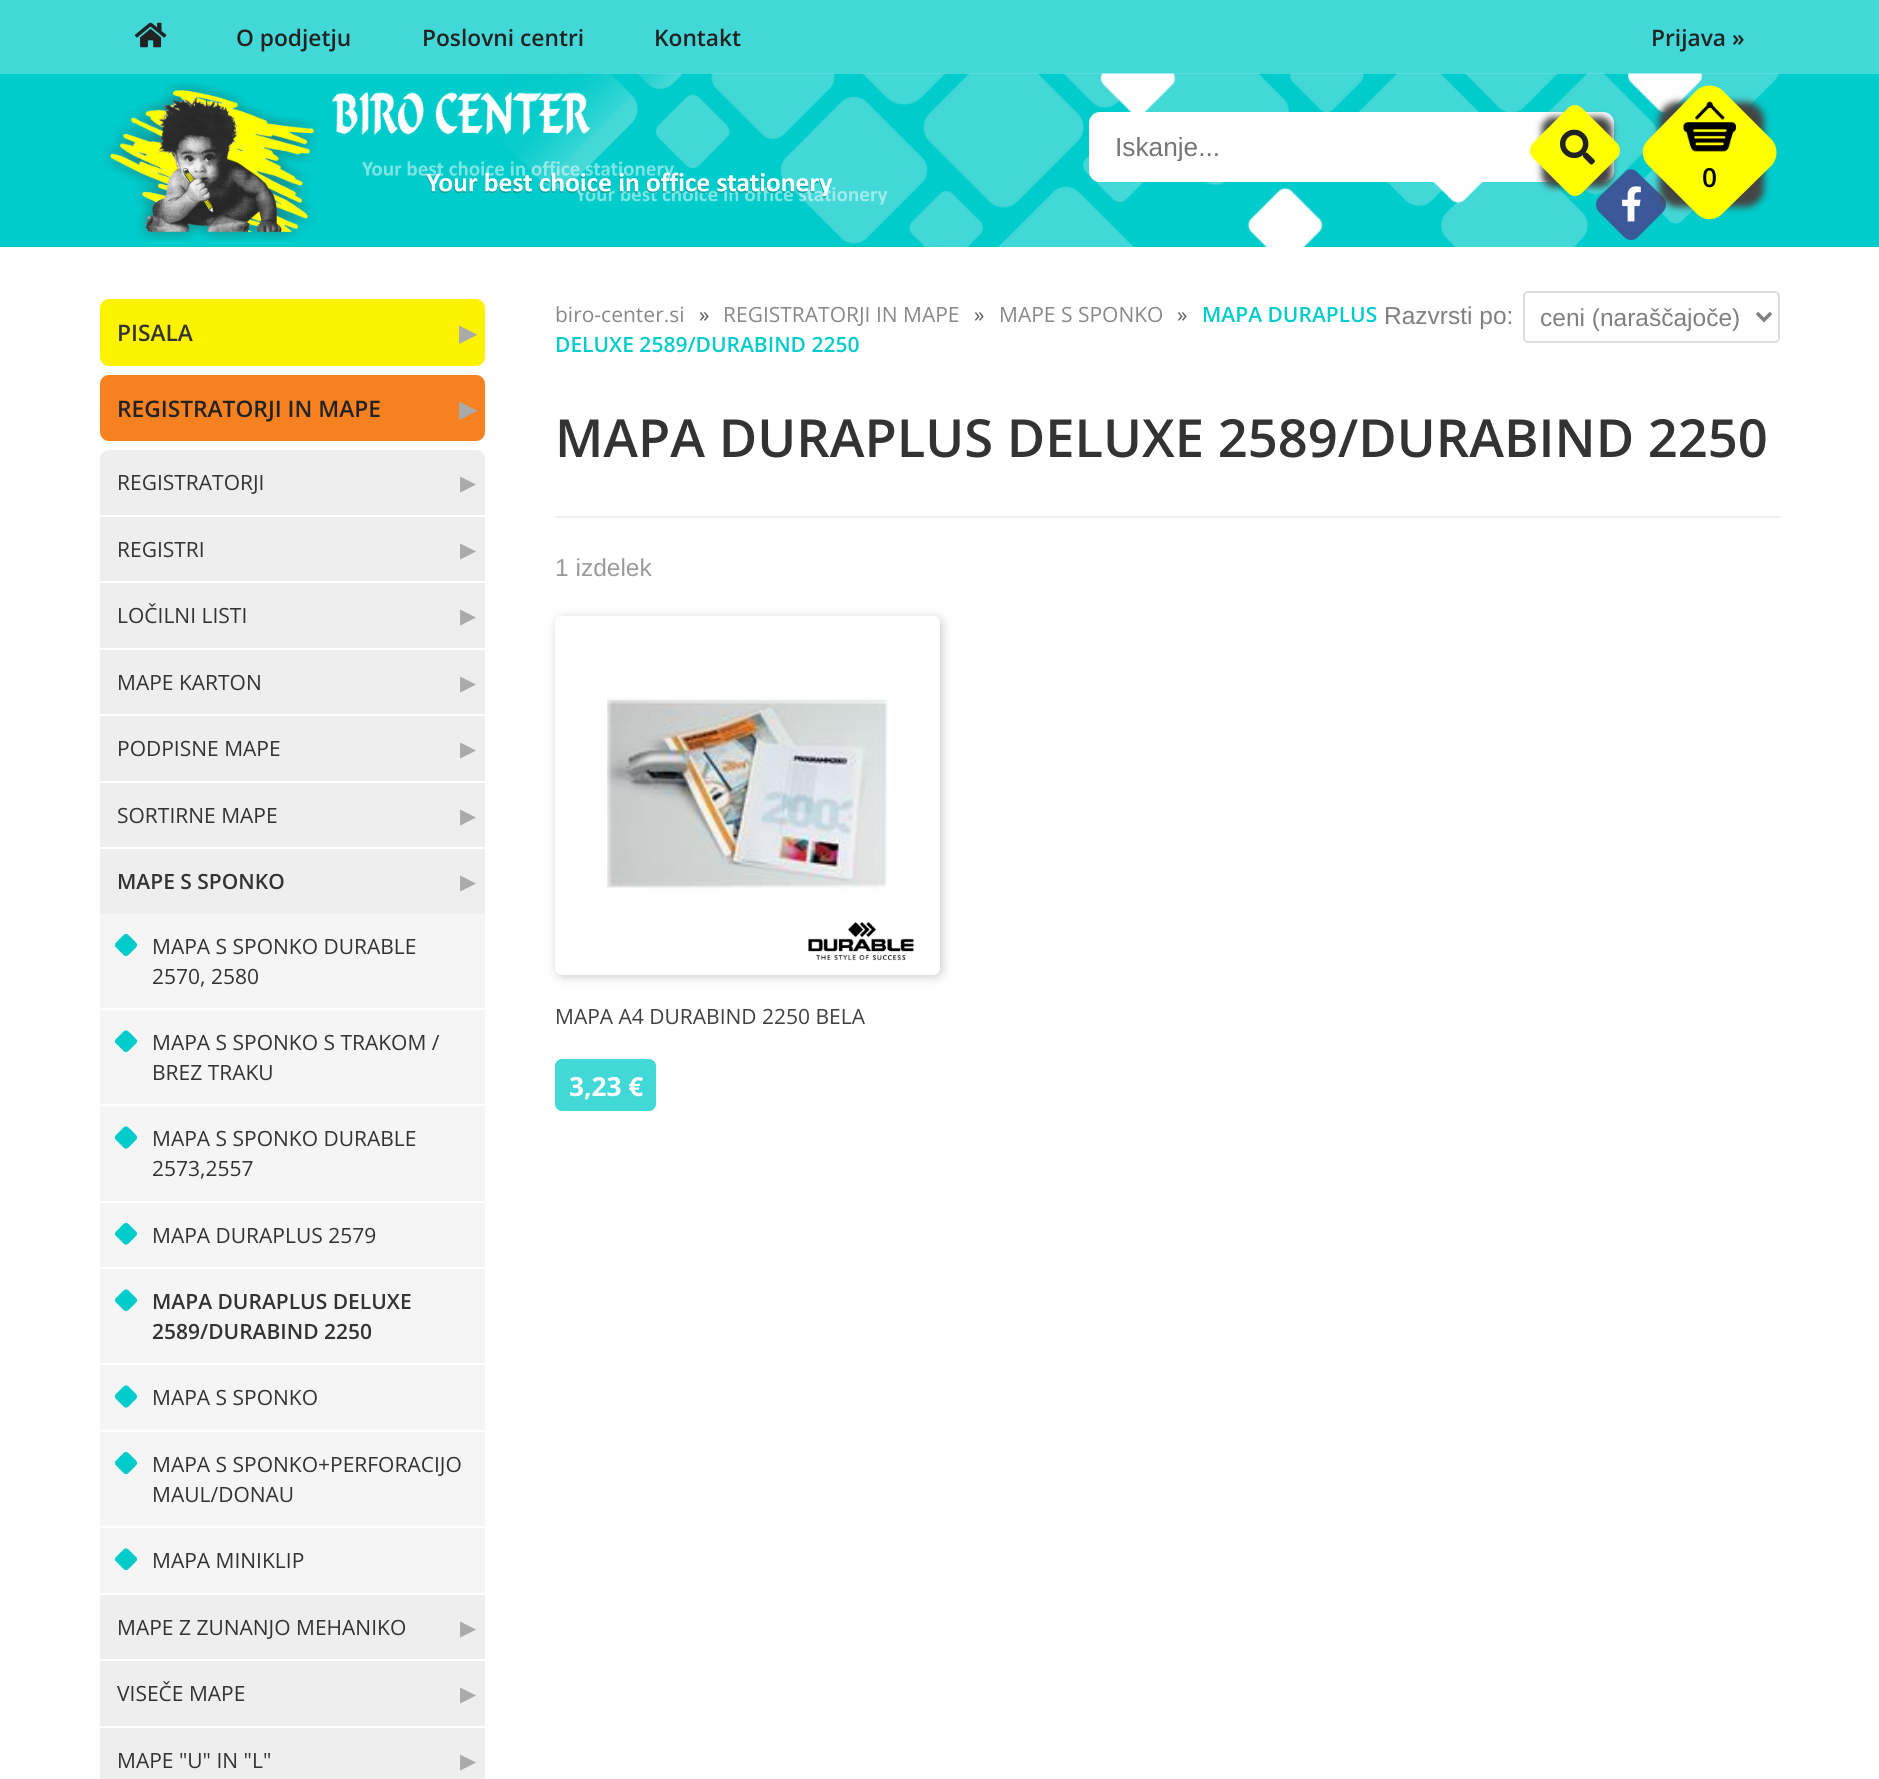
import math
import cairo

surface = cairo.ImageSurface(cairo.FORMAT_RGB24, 1879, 1779)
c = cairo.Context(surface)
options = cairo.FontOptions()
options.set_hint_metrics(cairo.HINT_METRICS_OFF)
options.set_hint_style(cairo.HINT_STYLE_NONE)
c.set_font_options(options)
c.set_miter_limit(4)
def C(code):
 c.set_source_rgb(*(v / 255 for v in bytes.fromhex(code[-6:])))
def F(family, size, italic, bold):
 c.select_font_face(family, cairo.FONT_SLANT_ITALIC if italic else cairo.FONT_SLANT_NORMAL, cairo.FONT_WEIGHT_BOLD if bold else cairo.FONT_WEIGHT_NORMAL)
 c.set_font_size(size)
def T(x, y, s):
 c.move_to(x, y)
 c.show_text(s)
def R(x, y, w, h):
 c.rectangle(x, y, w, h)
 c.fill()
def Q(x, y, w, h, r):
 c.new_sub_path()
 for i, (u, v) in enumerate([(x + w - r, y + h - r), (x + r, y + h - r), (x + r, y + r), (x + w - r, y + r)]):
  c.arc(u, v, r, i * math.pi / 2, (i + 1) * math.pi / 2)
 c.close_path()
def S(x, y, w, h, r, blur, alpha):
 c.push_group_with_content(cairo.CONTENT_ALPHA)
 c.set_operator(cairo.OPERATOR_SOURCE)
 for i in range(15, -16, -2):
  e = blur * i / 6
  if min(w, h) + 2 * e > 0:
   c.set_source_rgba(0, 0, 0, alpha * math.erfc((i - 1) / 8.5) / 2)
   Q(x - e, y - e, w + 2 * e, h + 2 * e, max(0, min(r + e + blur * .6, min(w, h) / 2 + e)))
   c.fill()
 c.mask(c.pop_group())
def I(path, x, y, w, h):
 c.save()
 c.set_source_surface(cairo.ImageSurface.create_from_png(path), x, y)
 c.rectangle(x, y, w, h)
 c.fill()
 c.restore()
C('00cccb')
c.paint()
C('42d8d8')
R(0,0,1879,74)
I('1.png',134,22,33,26)
F('Open Sans SemiBold',22.75,0,0)
C('222222')
T(236,46,'O podjetju')
T(422,46,'Poslovni centri')
T(654,46,'Kontakt')
T(1651,46,'Prijava »')
I('2.png',492,73,1287,174)
I('5.png',362,161,526,44)
I('3.png',104,82,486,159)
C('3b5998')
c.new_path()
c.move_to(1638,173)
c.line_to(1663,197)
c.curve_to(1667,201,1667,208,1663,212)
c.line_to(1638,237)
c.curve_to(1634,241,1628,241,1624,237)
c.line_to(1599,212)
c.curve_to(1595,208,1595,201,1599,197)
c.line_to(1624,173)
c.curve_to(1628,168,1634,168,1638,173)
c.close_path()
c.fill()
C('ffffff')
Q(1089,112,525,70,11)
c.fill()
c.save()
c.rectangle(1115,131,411,30)
c.clip()
F('Liberation Sans',26.25,0,0)
C('757575')
T(1115,156,'Iskanje...')
c.restore()
I('6.png',1622,186,19,36)
C('444444')
S(1542,117,70,70,11,3.5,1)
C('ffff00')
c.new_path()
c.move_to(1582,108)
c.line_to(1617,143)
c.curve_to(1621,147,1621,154,1617,158)
c.line_to(1582,193)
c.curve_to(1578,197,1572,197,1568,193)
c.line_to(1533,158)
c.curve_to(1529,154,1529,147,1533,143)
c.line_to(1568,108)
c.curve_to(1572,104,1578,104,1582,108)
c.close_path()
c.fill()
I('4.png',1560,129,35,36)
C('444444')
S(1659,102,105,105,18,3.5,1)
C('ffff00')
c.new_path()
c.move_to(1722,90)
c.line_to(1772,140)
c.curve_to(1778,147,1778,158,1772,165)
c.line_to(1722,214)
c.curve_to(1715,221,1704,221,1697,214)
c.line_to(1648,165)
c.curve_to(1641,158,1641,147,1648,140)
c.line_to(1697,90)
c.curve_to(1704,84,1715,84,1722,90)
c.close_path()
c.fill()
I('7.png',1683,101,53,51)
F('Open Sans SemiBold',26.25,0,0)
C('000000')
T(1702,187,'0')
C('ffffff')
R(0,247,1879,1532)
C('fdf300')
Q(100,299,385,67,9)
c.fill()
F('Open Sans SemiBold',22.75,0,0)
C('333333')
T(117,341,'PISALA')
F('DejaVu Sans',22.75,0,1)
C('aaaaaa')
T(459,341,'▶')
C('f68121')
Q(100,375,385,66,9)
c.fill()
F('Open Sans SemiBold',22.75,0,0)
C('222222')
T(117,417,'REGISTRATORJI IN MAPE')
F('DejaVu Sans',22.75,0,1)
C('aaaaaa')
T(459,417,'▶')
C('eeeeee')
Q(100,450,385,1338,9)
c.fill()
C('ffffff')
R(100,515,385,2)
F('Open Sans',21,0,0)
C('333333')
T(117,490,'REGISTRATORJI')
F('DejaVu Sans',21,0,0)
C('aaaaaa')
T(460,490,'▶')
C('ffffff')
R(100,581,385,2)
F('Open Sans',21,0,0)
C('333333')
T(117,557,'REGISTRI')
F('DejaVu Sans',21,0,0)
C('aaaaaa')
T(460,557,'▶')
C('ffffff')
R(100,648,385,2)
F('Open Sans',21,0,0)
C('333333')
T(117,623,'LOČILNI LISTI')
F('DejaVu Sans',21,0,0)
C('aaaaaa')
T(460,623,'▶')
C('ffffff')
R(100,714,385,2)
F('Open Sans',21,0,0)
C('333333')
T(117,690,'MAPE KARTON')
F('DejaVu Sans',21,0,0)
C('aaaaaa')
T(460,690,'▶')
C('ffffff')
R(100,781,385,2)
F('Open Sans',21,0,0)
C('333333')
T(117,756,'PODPISNE MAPE')
F('DejaVu Sans',21,0,0)
C('aaaaaa')
T(460,756,'▶')
C('ffffff')
R(100,847,385,2)
F('Open Sans',21,0,0)
C('333333')
T(117,823,'SORTIRNE MAPE')
F('DejaVu Sans',21,0,0)
C('aaaaaa')
T(460,823,'▶')
C('ffffff')
R(100,1593,385,2)
F('Open Sans SemiBold',21,0,0)
C('333333')
T(117,889,'MAPE S SPONKO')
F('DejaVu Sans',21,0,0)
C('aaaaaa')
T(460,889,'▶')
C('f5f5f5')
R(100,914,385,679)
C('ffffff')
R(100,1008,385,2)
C('00cccb')
c.new_path()
c.move_to(128.5,935)
c.line_to(136,942.5)
c.curve_to(137.5,944,137.5,946,136,947.5)
c.line_to(128.5,955)
c.curve_to(127,956.5,125,956.5,123.5,955)
c.line_to(116,947.5)
c.curve_to(114.5,946,114.5,944,116,942.5)
c.line_to(123.5,935)
c.curve_to(125,933.5,127,933.5,128.5,935)
c.close_path()
c.fill()
F('Open Sans',21,0,0)
C('333333')
T(152,954,'MAPA S SPONKO DURABLE')
T(152,984,'2570, 2580')
C('ffffff')
R(100,1104,385,2)
C('00cccb')
c.new_path()
c.move_to(128.5,1031.5)
c.line_to(136,1039)
c.curve_to(137.5,1040,137.5,1042.5,136,1043.5)
c.line_to(128.5,1051)
c.curve_to(127,1052.5,125,1052.5,123.5,1051)
c.line_to(116,1043.5)
c.curve_to(114.5,1042.5,114.5,1040,116,1039)
c.line_to(123.5,1031.5)
c.curve_to(125,1030,127,1030,128.5,1031.5)
c.close_path()
c.fill()
C('333333')
T(152,1050,'MAPA S SPONKO S TRAKOM /')
T(152,1080,'BREZ TRAKU')
C('ffffff')
R(100,1201,385,2)
C('00cccb')
c.new_path()
c.move_to(128.5,1127.5)
c.line_to(136,1135)
c.curve_to(137.5,1136.5,137.5,1138.5,136,1140)
c.line_to(128.5,1147.5)
c.curve_to(127,1149,125,1149,123.5,1147.5)
c.line_to(116,1140)
c.curve_to(114.5,1138.5,114.5,1136.5,116,1135)
c.line_to(123.5,1127.5)
c.curve_to(125,1126,127,1126,128.5,1127.5)
c.close_path()
c.fill()
C('333333')
T(152,1146,'MAPA S SPONKO DURABLE')
T(152,1176,'2573,2557')
C('ffffff')
R(100,1267,385,2)
C('00cccb')
c.new_path()
c.move_to(128.5,1224)
c.line_to(136,1231.5)
c.curve_to(137.5,1232.5,137.5,1235,136,1236)
c.line_to(128.5,1243.5)
c.curve_to(127,1245,125,1245,123.5,1243.5)
c.line_to(116,1236)
c.curve_to(114.5,1235,114.5,1232.5,116,1231.5)
c.line_to(123.5,1224)
c.curve_to(125,1222.5,127,1222.5,128.5,1224)
c.close_path()
c.fill()
C('333333')
T(152,1243,'MAPA DURAPLUS 2579')
C('ffffff')
R(100,1363,385,2)
C('00cccb')
c.new_path()
c.move_to(128.5,1290.5)
c.line_to(136,1298)
c.curve_to(137.5,1299,137.5,1301.5,136,1302.5)
c.line_to(128.5,1310)
c.curve_to(127,1311.5,125,1311.5,123.5,1310)
c.line_to(116,1302.5)
c.curve_to(114.5,1301.5,114.5,1299,116,1298)
c.line_to(123.5,1290.5)
c.curve_to(125,1289,127,1289,128.5,1290.5)
c.close_path()
c.fill()
F('Open Sans SemiBold',21,0,0)
C('333333')
T(152,1309,'MAPA DURAPLUS DELUXE')
T(152,1339,'2589/DURABIND 2250')
C('ffffff')
R(100,1430,385,2)
C('00cccb')
c.new_path()
c.move_to(128.5,1386.5)
c.line_to(136,1394)
c.curve_to(137.5,1395.5,137.5,1397.5,136,1399)
c.line_to(128.5,1406.5)
c.curve_to(127,1408,125,1408,123.5,1406.5)
c.line_to(116,1399)
c.curve_to(114.5,1397.5,114.5,1395.5,116,1394)
c.line_to(123.5,1386.5)
c.curve_to(125,1385,127,1385,128.5,1386.5)
c.close_path()
c.fill()
F('Open Sans',21,0,0)
C('333333')
T(152,1405,'MAPA S SPONKO')
C('ffffff')
R(100,1526,385,2)
C('00cccb')
c.new_path()
c.move_to(128.5,1453)
c.line_to(136,1460.5)
c.curve_to(137.5,1462,137.5,1464,136,1465.5)
c.line_to(128.5,1473)
c.curve_to(127,1474.5,125,1474.5,123.5,1473)
c.line_to(116,1465.5)
c.curve_to(114.5,1464,114.5,1462,116,1460.5)
c.line_to(123.5,1453)
c.curve_to(125,1451.5,127,1451.5,128.5,1453)
c.close_path()
c.fill()
C('333333')
T(152,1472,'MAPA S SPONKO+PERFORACIJO')
T(152,1502,'MAUL/DONAU')
C('00cccb')
c.new_path()
c.move_to(128.5,1549.5)
c.line_to(136,1557)
c.curve_to(137.5,1558,137.5,1560.5,136,1561.5)
c.line_to(128.5,1569)
c.curve_to(127,1570.5,125,1570.5,123.5,1569)
c.line_to(116,1561.5)
c.curve_to(114.5,1560.5,114.5,1558,116,1557)
c.line_to(123.5,1549.5)
c.curve_to(125,1548,127,1548,128.5,1549.5)
c.close_path()
c.fill()
C('333333')
T(152,1568,'MAPA MINIKLIP')
C('ffffff')
R(100,1659,385,2)
C('333333')
T(117,1635,'MAPE Z ZUNANJO MEHANIKO')
F('DejaVu Sans',21,0,0)
C('aaaaaa')
T(460,1635,'▶')
C('ffffff')
R(100,1726,385,2)
F('Open Sans',21,0,0)
C('333333')
T(117,1701,'VISEČE MAPE')
F('DejaVu Sans',21,0,0)
C('aaaaaa')
T(460,1701,'▶')
F('Open Sans',21,0,0)
C('333333')
T(117,1768,'MAPE "U" IN "L"')
F('DejaVu Sans',21,0,0)
C('aaaaaa')
T(460,1768,'▶')
F('Open Sans',21,0,0)
C('888888')
T(555,322,'biro-center.si')
C('606060')
T(699,322,'»')
C('888888')
T(723,322,'REGISTRATORJI IN MAPE')
C('606060')
T(974,322,'»')
C('888888')
T(999,322,'MAPE S SPONKO')
C('606060')
T(1177,322,'»')
F('Open Sans SemiBold',21,0,0)
C('00cccb')
T(1202,322,'MAPA DURAPLUS')
F('Liberation Sans',24.5,0,0)
C('808080')
T(1384,324,'Razvrsti po:')
Q(1524,292,255,50,4)
C('dddddd')
c.stroke()
c.new_path()
c.move_to(1757,313)
c.line_to(1764,320)
c.line_to(1771,313)
C('808080')
c.set_line_width(3.5)
c.stroke()
T(1540,326,'ceni (naraščajoče)')
F('Open Sans SemiBold',21,0,0)
C('00cccb')
T(555,352,'DELUXE 2589/DURABIND 2250')
C('eeeeee')
R(555,516,1225,2)
F('Open Sans SemiBold',52.5,0,0)
C('333333')
T(555,457,'MAPA DURAPLUS DELUXE 2589/DURABIND 2250')
F('Liberation Sans',24.5,0,0)
C('9a9a9a')
T(555,576,'1 izdelek')
c.save()
c.set_fill_rule(cairo.FILL_RULE_EVEN_ODD)
c.new_path()
c.move_to(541,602)
c.line_to(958,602)
c.line_to(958,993)
c.line_to(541,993)
c.close_path()
c.move_to(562,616)
c.line_to(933,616)
c.curve_to(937,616,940,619,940,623)
c.line_to(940,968)
c.curve_to(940,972,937,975,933,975)
c.line_to(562,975)
c.curve_to(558,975,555,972,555,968)
c.line_to(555,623)
c.curve_to(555,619,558,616,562,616)
c.close_path()
c.clip()
C('cccccc')
S(557,618,385,359,7,5,1)
c.restore()
I('8.png',808,922,106,39)
I('9.png',607,697,281,193)
F('Open Sans',21,0,0)
C('404040')
T(555,1024,'MAPA A4 DURABIND 2250 BELA')
C('42d8d8')
Q(555,1059,101,52,7)
c.fill()
F('Open Sans',26.25,0,1)
C('ffffff')
T(569,1096,'3,23 €')
surface.write_to_png('o.png')
